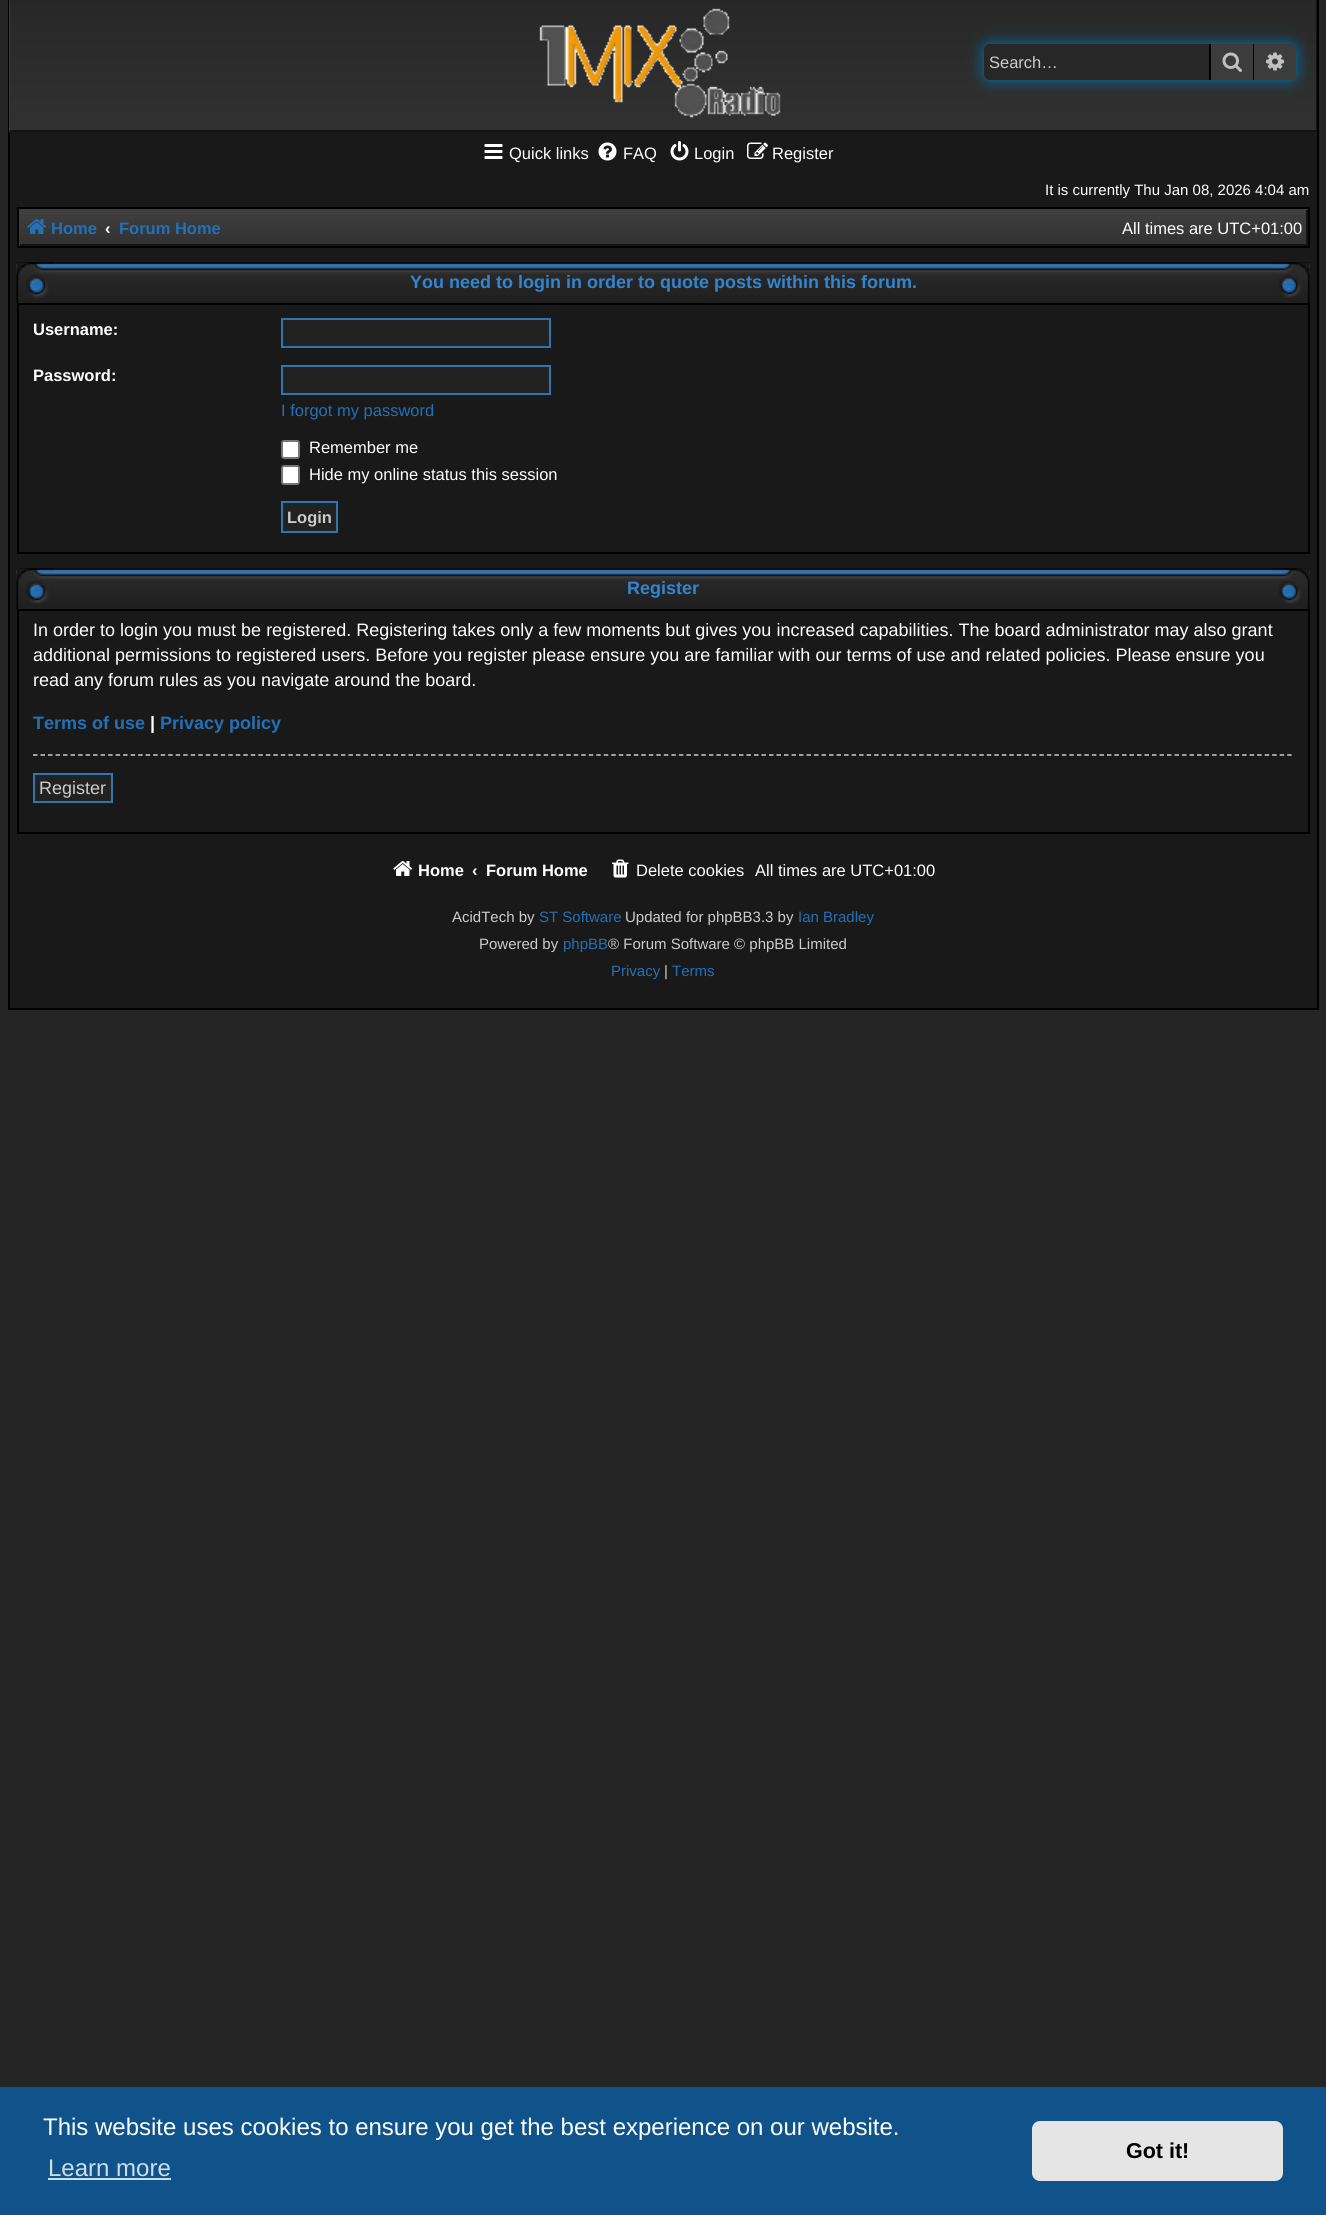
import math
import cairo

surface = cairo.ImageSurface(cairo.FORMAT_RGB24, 1326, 2215)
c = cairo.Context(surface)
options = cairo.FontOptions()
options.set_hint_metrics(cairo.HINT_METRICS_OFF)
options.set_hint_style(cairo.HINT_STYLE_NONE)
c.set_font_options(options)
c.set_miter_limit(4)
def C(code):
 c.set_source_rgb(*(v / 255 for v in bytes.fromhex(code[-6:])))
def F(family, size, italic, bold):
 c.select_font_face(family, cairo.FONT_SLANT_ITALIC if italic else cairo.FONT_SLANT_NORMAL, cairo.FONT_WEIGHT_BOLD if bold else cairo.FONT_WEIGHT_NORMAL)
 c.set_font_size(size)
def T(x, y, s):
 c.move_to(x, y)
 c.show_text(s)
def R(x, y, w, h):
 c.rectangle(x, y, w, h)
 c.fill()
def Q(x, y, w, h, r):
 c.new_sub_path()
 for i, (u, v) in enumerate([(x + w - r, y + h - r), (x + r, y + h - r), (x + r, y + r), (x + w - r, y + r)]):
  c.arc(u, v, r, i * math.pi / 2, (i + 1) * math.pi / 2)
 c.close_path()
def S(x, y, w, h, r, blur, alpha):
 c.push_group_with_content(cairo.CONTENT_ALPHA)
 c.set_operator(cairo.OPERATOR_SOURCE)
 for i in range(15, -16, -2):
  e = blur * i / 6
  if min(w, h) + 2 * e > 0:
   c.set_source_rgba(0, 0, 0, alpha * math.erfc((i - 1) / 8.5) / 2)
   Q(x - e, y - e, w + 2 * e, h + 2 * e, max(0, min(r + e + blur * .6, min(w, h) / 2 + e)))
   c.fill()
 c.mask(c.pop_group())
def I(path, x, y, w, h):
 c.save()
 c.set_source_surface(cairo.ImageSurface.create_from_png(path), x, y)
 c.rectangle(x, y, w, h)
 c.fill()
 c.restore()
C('242424')
c.paint()
C('191919')
R(10,132,1307,876)
C('000000')
R(1317,0,2,1010)
R(8,1008,1311,2)
R(8,0,2,1010)
gradient = cairo.LinearGradient(663,-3,663,132)
gradient.add_color_stop_rgba(0,0.153,0.153,0.153,1)
gradient.add_color_stop_rgba(1,0.192,0.192,0.192,1)
c.set_source(gradient)
R(10,0,1306,130)
c.save()
c.rectangle(9,0,1308,132)
c.clip()
C('131313')
c.set_fill_rule(cairo.FILL_RULE_EVEN_ODD)
c.new_path()
c.move_to(-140,-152)
c.line_to(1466,-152)
c.line_to(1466,280)
c.line_to(-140,280)
c.close_path()
c.move_to(8,-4)
c.line_to(1316,-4)
c.line_to(1316,130)
c.line_to(8,130)
c.close_path()
c.fill()
C('3c3c3c')
c.new_path()
c.move_to(-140,-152)
c.line_to(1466,-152)
c.line_to(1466,280)
c.line_to(-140,280)
c.close_path()
c.move_to(10,-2)
c.line_to(1318,-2)
c.line_to(1318,134)
c.line_to(10,134)
c.close_path()
c.fill()
c.restore()
I('1.png',539,8,242,110)
C('0075b0')
S(984,44,312,36,6,7.5,1)
C('272727')
c.new_path()
c.move_to(990,44)
c.line_to(1209,44)
c.line_to(1209,80)
c.line_to(990,80)
c.curve_to(986.5,80,984,77.5,984,74)
c.line_to(984,50)
c.curve_to(984,46.5,986.5,44,990,44)
c.close_path()
c.fill()
F('Liberation Sans',16.5,0,0)
C('cccccc')
T(989,68,'Search…')
C('3c3c3c')
R(1211,44,42,36)
C('000000')
R(1253,44,1,36)
R(1209,44,2,36)
I('2.png',1222,52,20,20)
C('3c3c3c')
c.new_path()
c.move_to(1254,44)
c.line_to(1290,44)
c.curve_to(1293.5,44,1296,46.5,1296,50)
c.line_to(1296,74)
c.curve_to(1296,77.5,1293.5,80,1290,80)
c.line_to(1254,80)
c.close_path()
c.fill()
I('3.png',1266,52,18,19)
I('4.png',484,144,19,15)
C('ffffff')
T(509,159,'Quick links')
I('5.png',598,142,19,19)
T(623,159,'FAQ')
I('6.png',670,141,19,20)
T(694,159,'Login')
I('7.png',747,142,21,17)
T(772,159,'Register')
F('Liberation Sans',15,0,0)
T(1045,195,'It is currently Thu Jan 08, 2026 4:04 am')
gradient = cairo.LinearGradient(663,208,663,246)
gradient.add_color_stop_rgba(0,0.251,0.251,0.251,1)
gradient.add_color_stop_rgba(1,0.192,0.192,0.192,1)
c.set_source(gradient)
R(20,210,1286,34)
c.save()
c.rectangle(18,209,1290,37)
c.clip()
C('131313')
c.set_fill_rule(cairo.FILL_RULE_EVEN_ODD)
c.new_path()
c.move_to(-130,60)
c.line_to(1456,60)
c.line_to(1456,394)
c.line_to(-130,394)
c.close_path()
c.move_to(16,207)
c.line_to(1306,207)
c.line_to(1306,244)
c.line_to(16,244)
c.close_path()
c.fill()
C('3c3c3c')
c.new_path()
c.move_to(-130,60)
c.line_to(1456,60)
c.line_to(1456,394)
c.line_to(-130,394)
c.close_path()
c.move_to(20,210)
c.line_to(1310,210)
c.line_to(1310,248)
c.line_to(20,248)
c.close_path()
c.fill()
c.restore()
c.rectangle(18,208,1291,39)
C('000000')
c.stroke()
I('8.png',27,219,20,15)
F('Liberation Sans',16.5,0,1)
C('2370b6')
T(51,234,'Home')
C('ffffff')
T(105,234,'‹')
C('2370b6')
T(119,234,'Forum Home')
F('Liberation Sans',16.5,0,0)
C('ffffff')
T(1122,234,'All times are UTC+01:00')
I('9.png',16,262,1294,41)
F('Liberation Sans',18,0,1)
C('3285d0')
T(410,288,'You need to login in order to quote posts within this forum.')
c.rectangle(18,304,1291,249)
C('000000')
c.stroke()
F('Liberation Sans',16.5,0,1)
C('ffffff')
T(33,335,'Username:')
C('222222')
c.rectangle(282,319,268,28)
c.fill_preserve()
C('2f74b3')
c.stroke()
C('ffffff')
T(33,381,'Password:')
C('222222')
c.rectangle(282,366,268,28)
c.fill_preserve()
C('2f74b3')
c.stroke()
F('Liberation Sans',16.5,0,0)
C('2370b6')
T(281,416,'I forgot my password')
C('ffffff')
Q(282,441,17,17,2)
c.fill_preserve()
C('767676')
c.stroke()
C('ffffff')
T(309,453,'Remember me')
Q(282,466,17,18,2)
c.fill_preserve()
C('767676')
c.stroke()
C('ffffff')
T(309,480,'Hide my online status this session')
C('222222')
c.rectangle(282,502,55,30)
c.fill_preserve()
C('2f74b3')
c.stroke()
F('Liberation Sans',16.5,0,1)
C('cccccc')
T(287,523,'Login')
I('10.png',16,568,1294,41)
F('Liberation Sans',18,0,1)
C('3285d0')
T(627,594,'Register')
c.rectangle(18,610,1291,223)
C('000000')
c.stroke()
F('Liberation Sans',18,0,0)
C('ffffff')
T(33,636,'In order to login you must be registered. Registering takes only a few moments but gives you increased capabilities. The board administrator may also grant')
T(33,661,'additional permissions to registered users. Before you register please ensure you are familiar with our terms of use and related policies. Please ensure you')
T(33,686,'read any forum rules as you navigate around the board.')
F('Liberation Sans',18,0,1)
C('2370b6')
T(33,729,'Terms of use')
C('ffffff')
T(150,729,'|')
C('2370b6')
T(160,729,'Privacy policy')
c.new_path()
c.move_to(33,755)
c.line_to(1293,755)
C('cccccc')
c.set_line_width(1.5)
c.set_dash([4.5,3.01])
c.stroke()
C('222222')
c.rectangle(34,774,78,28)
c.fill_preserve()
C('2f74b3')
c.set_line_width(2)
c.set_dash([])
c.stroke()
F('Liberation Sans',18,0,0)
C('cccccc')
T(39,794,'Register')
I('11.png',393,861,20,15)
F('Liberation Sans',16.5,0,1)
C('ffffff')
T(418,876,'Home')
T(472,876,'‹')
T(486,876,'Forum Home')
I('12.png',612,859,17,19)
F('Liberation Sans',16.5,0,0)
T(636,876,'Delete cookies')
T(755,876,'All times are UTC+01:00')
F('Liberation Sans',15,0,0)
C('cccccc')
T(452,922,'AcidTech by')
C('2370b6')
T(539,922,'ST Software')
C('cccccc')
T(625,922,'Updated for phpBB3.3 by')
C('2370b6')
T(798,922,'Ian Bradley')
C('cccccc')
T(479,949,'Powered by')
C('2370b6')
T(563,949,'phpBB')
C('cccccc')
T(608,949,'® Forum Software © phpBB Limited')
C('2370b6')
T(611,976,'Privacy')
C('cccccc')
T(664,976,'|')
C('2370b6')
T(672,976,'Terms')
C('0f538a')
R(0,2087,1326,128)
F('Liberation Sans',24,0,0)
C('ffffff')
T(43,2135,'This website uses cookies to ensure you get the best experience on our website.')
C('cfdde8')
T(48,2176,'Learn more')
R(48,2178,123,2)
C('e5e5e5')
Q(1032,2121,251,60,8)
c.fill()
F('Liberation Sans',21.5,0,1)
C('000000')
T(1126,2158,'Got it!')
surface.write_to_png('o.png')
